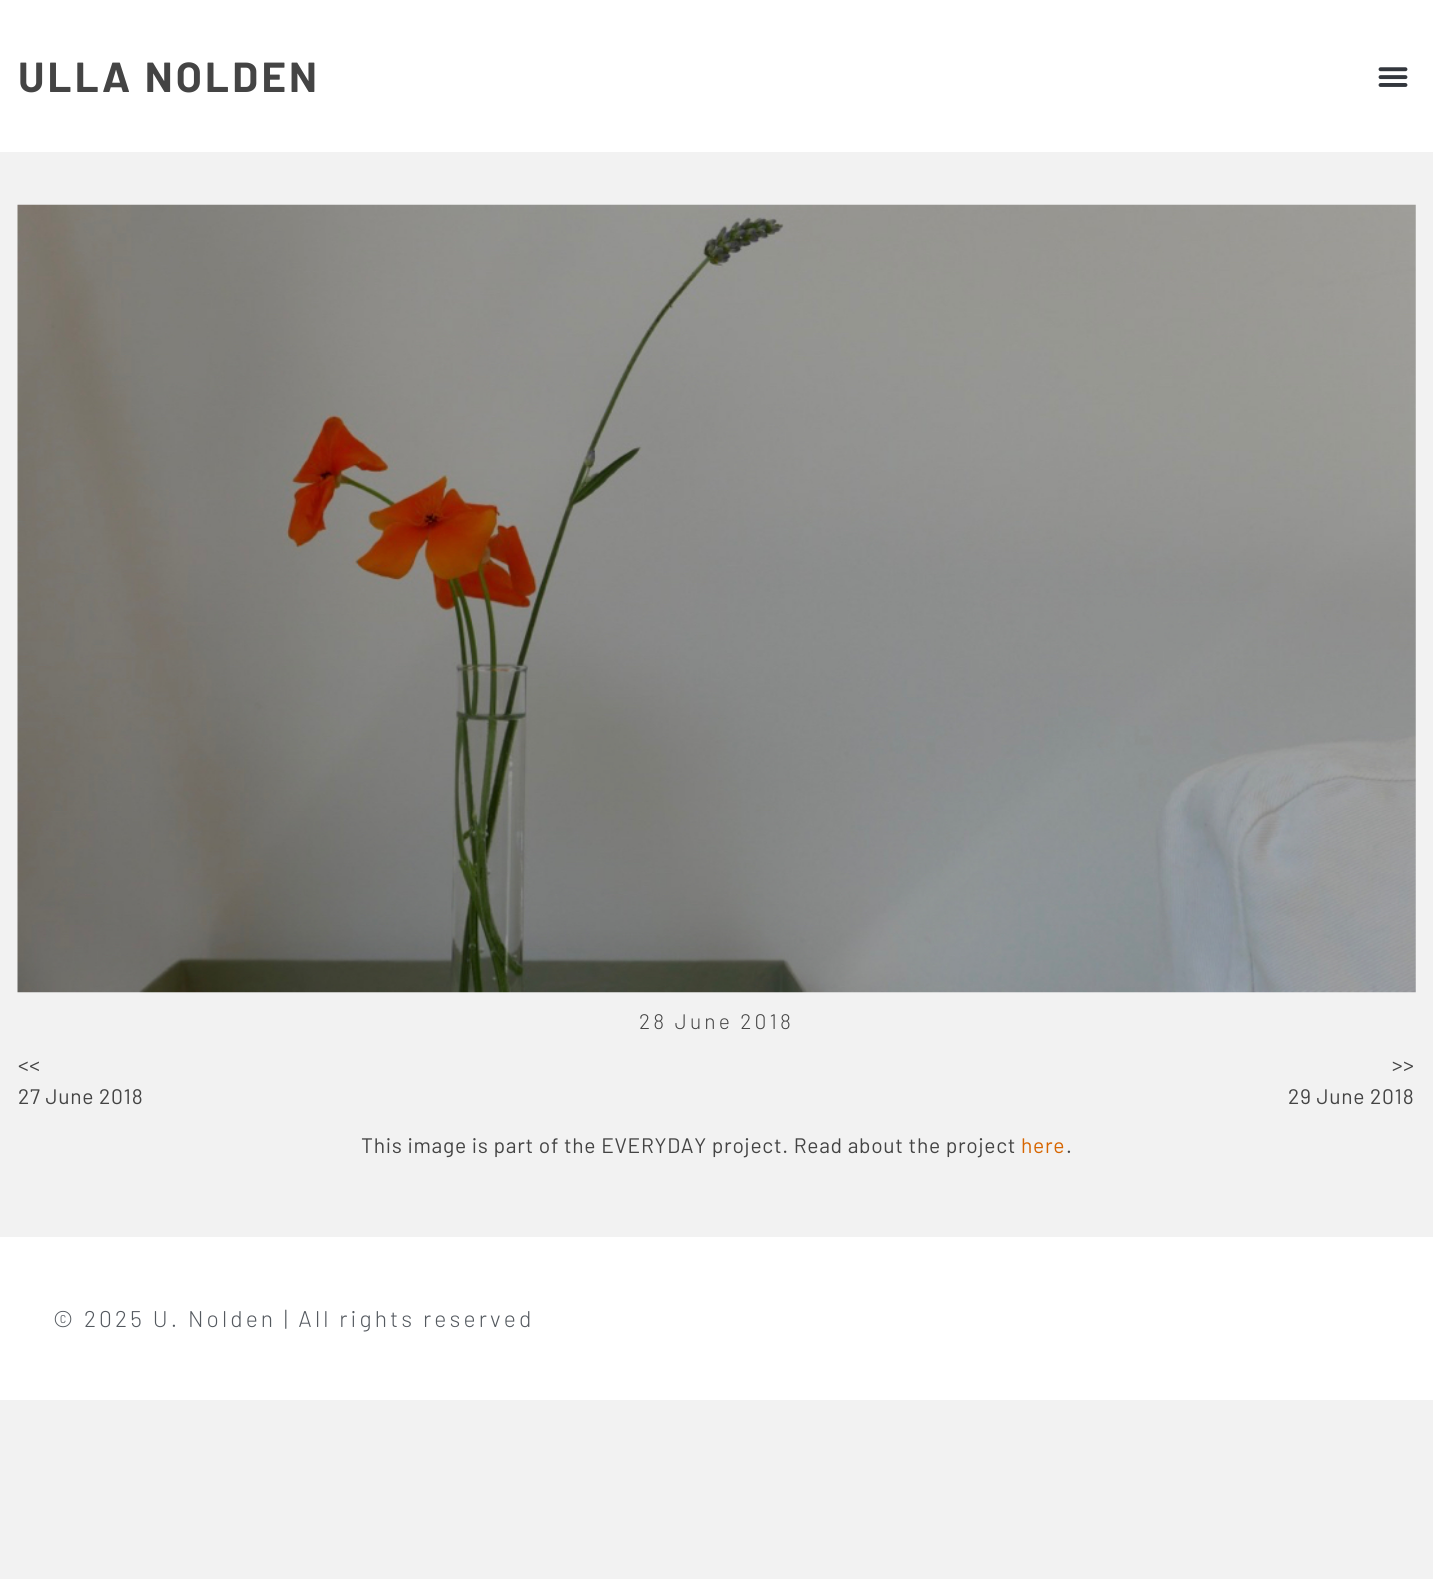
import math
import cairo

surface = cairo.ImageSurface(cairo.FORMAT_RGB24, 1433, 1579)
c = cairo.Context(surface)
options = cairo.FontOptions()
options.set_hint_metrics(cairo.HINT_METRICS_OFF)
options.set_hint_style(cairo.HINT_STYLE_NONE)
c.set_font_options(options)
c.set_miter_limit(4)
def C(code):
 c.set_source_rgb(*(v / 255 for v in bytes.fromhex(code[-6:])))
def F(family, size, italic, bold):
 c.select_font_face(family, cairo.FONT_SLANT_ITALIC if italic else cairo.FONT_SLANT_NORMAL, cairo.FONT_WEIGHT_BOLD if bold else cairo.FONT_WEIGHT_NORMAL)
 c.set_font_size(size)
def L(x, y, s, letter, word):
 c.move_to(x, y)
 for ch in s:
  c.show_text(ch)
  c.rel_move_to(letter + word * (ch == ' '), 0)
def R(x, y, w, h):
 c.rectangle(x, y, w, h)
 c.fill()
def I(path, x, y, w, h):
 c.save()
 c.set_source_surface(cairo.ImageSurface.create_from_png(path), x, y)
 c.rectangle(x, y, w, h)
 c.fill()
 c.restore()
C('f2f2f2')
c.paint()
C('ffffff')
R(0,0,1433,152)
F('Barlow',42,0,1)
C('444444')
L(18,92,'ULLA NOLDEN',3.15,0)
I('1.png',1378,67,30,20)
I('2.png',17,204,1399,789)
F('Barlow Light',21,0,0)
L(639,1029,'28 June 2018',3.15,0)
F('Barlow',21,0,0)
L(18,1072,'<<',.7,0)
L(18,1104,'27 June 2018',.7,0)
L(1392,1072,'>>',.7,0)
L(1288,1104,'29 June 2018',.7,0)
L(361,1153,'This image is part of the EVERYDAY project. Read about the project',.7,0)
C('d76500')
L(1021,1153,'here',.7,0)
C('444444')
L(1066,1153,'.',.7,0)
C('ffffff')
R(0,1237,1433,163)
F('Barlow Light',22.75,0,0)
C('54595f')
L(53,1327,'© 2025 U. Nolden | All rights reserved',3.15,0)
surface.write_to_png('o.png')
